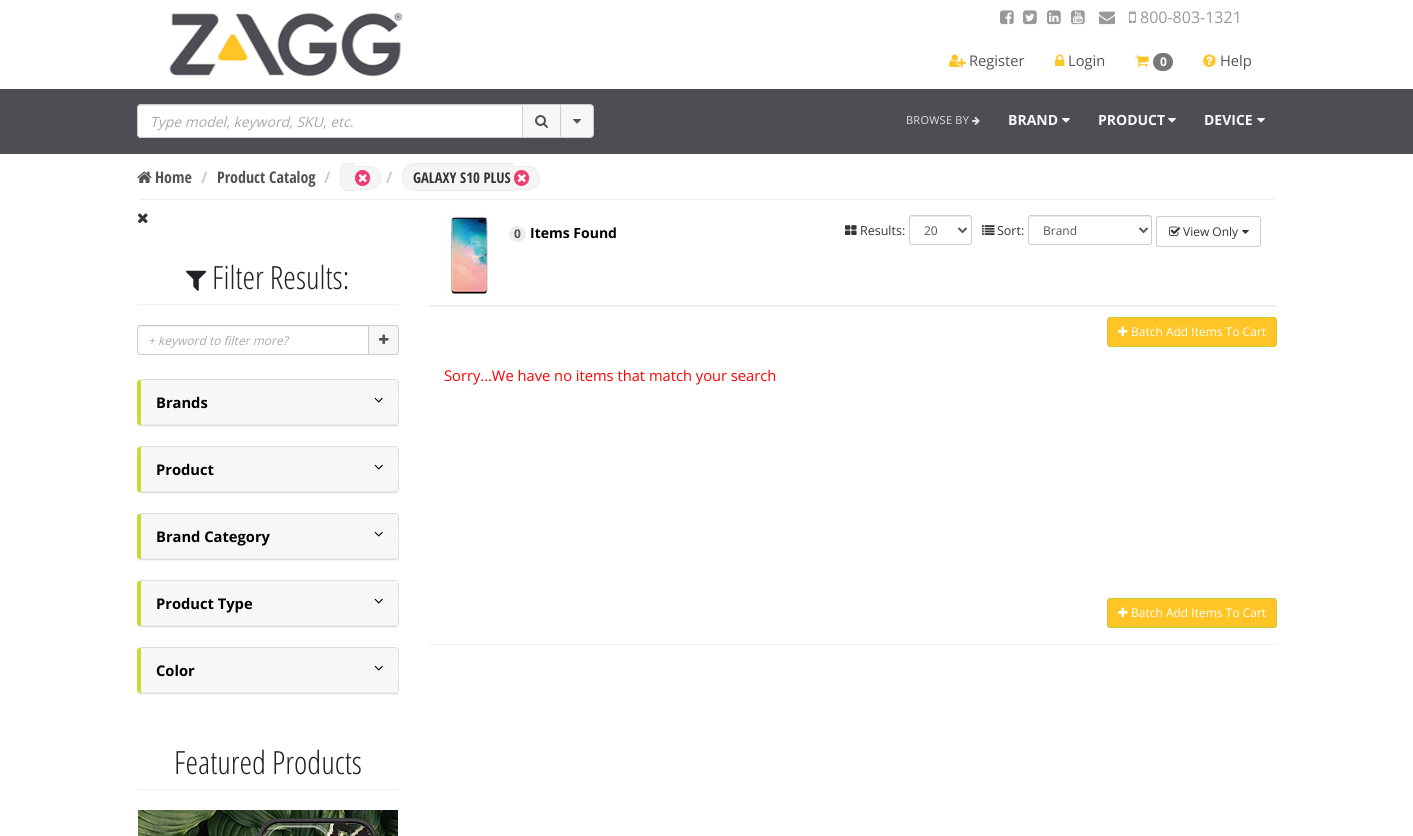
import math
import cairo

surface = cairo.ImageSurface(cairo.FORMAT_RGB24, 1413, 836)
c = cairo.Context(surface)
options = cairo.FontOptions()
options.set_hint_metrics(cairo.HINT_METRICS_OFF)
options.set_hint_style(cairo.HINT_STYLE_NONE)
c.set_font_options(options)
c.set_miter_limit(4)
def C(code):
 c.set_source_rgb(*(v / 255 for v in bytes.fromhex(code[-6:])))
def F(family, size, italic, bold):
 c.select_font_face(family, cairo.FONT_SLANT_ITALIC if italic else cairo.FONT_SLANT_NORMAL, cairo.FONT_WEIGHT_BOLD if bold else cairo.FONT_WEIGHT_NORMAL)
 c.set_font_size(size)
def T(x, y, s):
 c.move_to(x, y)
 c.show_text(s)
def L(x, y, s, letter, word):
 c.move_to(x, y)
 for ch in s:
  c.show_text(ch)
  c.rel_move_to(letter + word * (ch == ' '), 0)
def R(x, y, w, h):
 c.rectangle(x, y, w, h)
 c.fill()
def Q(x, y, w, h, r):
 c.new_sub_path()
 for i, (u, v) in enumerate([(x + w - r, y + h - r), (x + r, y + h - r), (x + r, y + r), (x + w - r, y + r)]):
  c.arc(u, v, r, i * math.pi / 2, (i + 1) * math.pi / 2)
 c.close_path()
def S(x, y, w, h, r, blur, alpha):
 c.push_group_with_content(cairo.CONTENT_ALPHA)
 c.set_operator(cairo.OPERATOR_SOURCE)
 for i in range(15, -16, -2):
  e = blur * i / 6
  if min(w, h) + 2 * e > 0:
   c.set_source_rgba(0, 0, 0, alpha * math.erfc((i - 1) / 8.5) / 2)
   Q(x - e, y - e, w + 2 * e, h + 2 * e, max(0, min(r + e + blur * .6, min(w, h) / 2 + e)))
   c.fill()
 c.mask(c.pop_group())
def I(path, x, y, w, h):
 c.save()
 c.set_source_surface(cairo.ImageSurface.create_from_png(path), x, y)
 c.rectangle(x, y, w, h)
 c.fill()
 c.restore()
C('ffffff')
c.paint()
I('1.png',169,12,234,65)
I('2.png',1000,10,14,15)
I('3.png',1023,10,14,15)
I('4.png',1047,10,14,15)
I('5.png',1071,10,14,15)
I('6.png',1099,11,16,14)
I('7.png',1129,11,7,12)
F('Open Sans',16,0,0)
C('999999')
T(1140,23,'800-803-1321')
I('8.png',949,54,17,14)
F('Open Sans',14.7,0,0)
C('535353')
T(969,66,'Register')
I('9.png',1055,54,10,12)
T(1068,66,'Login')
I('10.png',1135,55,14,12)
C('777777')
Q(1153,53,20,18,9)
c.fill()
F('Open Sans',12,0,1)
C('ffffff')
T(1160,66,'0')
I('11.png',1203,54,13,13)
F('Open Sans',14.7,0,0)
C('535353')
T(1220,66,'Help')
C('4d4d54')
R(0,89,1413,65)
C('ffffff')
c.new_path()
c.move_to(141,104)
c.line_to(523,104)
c.line_to(523,138)
c.line_to(141,138)
c.curve_to(139,138,137,136,137,134)
c.line_to(137,108)
c.curve_to(137,106,139,104,141,104)
c.close_path()
c.fill()
C('ececec')
c.new_path()
c.move_to(141,106)
c.line_to(522,106)
c.line_to(522,105)
c.line_to(141,105)
c.curve_to(139,105,138,106,138,108)
c.line_to(138,109)
c.curve_to(138,107,139,106,141,106)
c.close_path()
c.fill()
c.new_path()
c.move_to(141,104.5)
c.line_to(522.5,104.5)
c.line_to(522.5,137.5)
c.line_to(141,137.5)
c.curve_to(139,137.5,137.5,136,137.5,134)
c.line_to(137.5,108)
c.curve_to(137.5,106,139,104.5,141,104.5)
c.close_path()
C('cccccc')
c.set_line_width(1)
c.stroke()
F('Open Sans',14,1,0)
C('a7a9ab')
T(150,127,'Type model, keyword, SKU, etc.')
C('f7f7f7')
c.rectangle(522.5,104.5,38,33)
c.fill_preserve()
C('cccccc')
c.stroke()
I('12.png',535,115,13,13)
C('f7f7f7')
c.new_path()
c.move_to(560.5,104.5)
c.line_to(590,104.5)
c.curve_to(592,104.5,593.5,106,593.5,108)
c.line_to(593.5,134)
c.curve_to(593.5,136,592,137.5,590,137.5)
c.line_to(560.5,137.5)
c.close_path()
c.fill_preserve()
C('cccccc')
c.stroke()
I('13.png',573,119,8,5)
F('Open Sans',11,0,0)
C('e1e1e1')
L(906,124,'BROWSE BY',.25,0)
I('14.png',972,117,8,8)
F('Open Sans',14,0,1)
C('f7f7f7')
T(1008,125,'BRAND')
I('15.png',1062,118,8,5)
T(1098,125,'PRODUCT')
I('15.png',1168,118,8,5)
T(1204,125,'DEVICE')
I('15.png',1257,118,8,5)
C('eeeeee')
R(139,199,1136,1)
I('16.png',137,171,15,12)
F('Open Sans Condensed',16,0,1)
C('535353')
T(155,183,'Home')
C('cccccc')
T(201,183,'/')
C('535353')
T(217,183,'Product Catalog')
C('cccccc')
T(324,183,'/')
C('f5f5f5')
c.new_path()
c.move_to(347.5,163)
c.line_to(355,163)
c.line_to(355,191)
c.line_to(347.5,191)
c.curve_to(343.5,191,340,187.5,340,183.5)
c.line_to(340,170.5)
c.curve_to(340,166.5,343.5,163,347.5,163)
c.close_path()
c.fill()
C('ebebeb')
c.set_fill_rule(cairo.FILL_RULE_EVEN_ODD)
c.new_path()
c.move_to(347.5,163)
c.line_to(355,163)
c.line_to(355,191)
c.line_to(347.5,191)
c.curve_to(343.5,191,340,187.5,340,183.5)
c.line_to(340,170.5)
c.curve_to(340,166.5,343.5,163,347.5,163)
c.close_path()
c.move_to(347.5,164)
c.line_to(355,164)
c.line_to(355,190)
c.line_to(347.5,190)
c.curve_to(344,190,341,187,341,183.5)
c.line_to(341,170.5)
c.curve_to(341,167,344,164,347.5,164)
c.close_path()
c.fill()
C('f5f5f5')
c.new_path()
c.move_to(355,166)
c.line_to(369,166)
c.curve_to(375.5,166,381,171.5,381,178)
c.curve_to(381,184.5,375.5,190,369,190)
c.line_to(355,190)
c.close_path()
c.fill()
C('ebebeb')
c.new_path()
c.move_to(355,166)
c.line_to(369,166)
c.curve_to(375.5,166,381,171.5,381,178)
c.curve_to(381,184.5,375.5,190,369,190)
c.line_to(355,190)
c.close_path()
c.move_to(355,167)
c.line_to(369,167)
c.curve_to(375,167,380,172,380,178)
c.curve_to(380,184,375,189,369,189)
c.line_to(355,189)
c.close_path()
c.fill()
C('ee3d71')
Q(355,170,15,16,7.5)
c.fill()
I('17.png',358,174,9,9)
C('cccccc')
T(386,183,'/')
C('f5f5f5')
c.new_path()
c.move_to(416,163)
c.line_to(514,163)
c.line_to(514,191)
c.line_to(416,191)
c.curve_to(408.5,191,402,184.5,402,177)
c.curve_to(402,169.5,408.5,163,416,163)
c.close_path()
c.fill()
C('ebebeb')
c.new_path()
c.move_to(416,163)
c.line_to(514,163)
c.line_to(514,191)
c.line_to(416,191)
c.curve_to(408,191,402,185,402,177)
c.curve_to(402,169,408,163,416,163)
c.close_path()
c.move_to(416,164)
c.line_to(514,164)
c.line_to(514,190)
c.line_to(413,190)
c.curve_to(398,187,401,164,416,164)
c.close_path()
c.fill()
C('f5f5f5')
c.new_path()
c.move_to(514,166)
c.line_to(528,166)
c.curve_to(534.5,166,540,171.5,540,178)
c.curve_to(540,184.5,534.5,190,528,190)
c.line_to(514,190)
c.close_path()
c.fill()
C('ebebeb')
c.new_path()
c.move_to(514,166)
c.line_to(528,166)
c.curve_to(534.5,166,540,171.5,540,178)
c.curve_to(540,184.5,534.5,190,528,190)
c.line_to(514,190)
c.close_path()
c.move_to(514,167)
c.line_to(528,167)
c.curve_to(534,167,539,172,539,178)
c.curve_to(539,184,534,189,528,189)
c.line_to(514,189)
c.close_path()
c.fill()
F('Open Sans Condensed',14.7,0,1)
C('333333')
T(413,183,'GALAXY S10 PLUS')
C('ee3d71')
Q(514,170,15,16,7.5)
c.fill()
I('17.png',517,174,9,9)
I('18.png',137,213,11,11)
C('eeeeee')
R(137,304,262,1)
I('19.png',186,270,21,21)
F('Open Sans Condensed Light',32,0,0)
C('212128')
T(212,289,'Filter Results:')
C('ececec')
c.set_fill_rule(cairo.FILL_RULE_WINDING)
c.new_path()
c.move_to(140,327)
c.line_to(368,327)
c.line_to(368,326)
c.line_to(140,326)
c.line_to(139,327)
c.line_to(138,329)
c.curve_to(138,328,139,327,140,327)
c.close_path()
c.fill()
c.new_path()
c.move_to(140,325.5)
c.line_to(368.5,325.5)
c.line_to(368.5,354.5)
c.line_to(140,354.5)
c.curve_to(138.5,354.5,137.5,353.5,137.5,352)
c.line_to(137.5,328)
c.curve_to(137.5,326.5,138.5,325.5,140,325.5)
c.close_path()
C('cccccc')
c.stroke()
F('Open Sans',12,1,0)
C('a7a9ab')
T(148,345,'+ keyword to filter more?')
C('f7f7f7')
c.new_path()
c.move_to(368.5,325.5)
c.line_to(396,325.5)
c.curve_to(397.5,325.5,398.5,326.5,398.5,328)
c.line_to(398.5,352)
c.curve_to(398.5,353.5,397.5,354.5,396,354.5)
c.line_to(368.5,354.5)
c.close_path()
c.fill_preserve()
C('cccccc')
c.stroke()
I('20.png',379,334,10,10)
C('000000')
S(137,380,262,47,4,.5,.05)
C('dddddd')
c.new_path()
c.move_to(141,379)
c.line_to(139,380)
c.line_to(141,380)
c.line_to(395,380)
c.line_to(397,381)
c.line_to(398,380)
c.line_to(395,379)
c.close_path()
c.fill()
c.new_path()
c.move_to(399,422)
c.line_to(399,383)
c.curve_to(399,382,398,381,398,380)
c.line_to(397,381)
c.curve_to(399,382,399,423,397,424)
c.line_to(398,425)
c.close_path()
c.fill()
c.new_path()
c.move_to(141,426)
c.line_to(395,426)
c.curve_to(396,426,397,426,398,425)
c.line_to(397,424)
c.line_to(395,425)
c.line_to(141,425)
c.line_to(139,425)
c.close_path()
c.fill()
C('cadb37')
c.new_path()
c.move_to(141,380)
c.line_to(139,380)
c.curve_to(138,380,137,382,137,383)
c.line_to(137,422)
c.curve_to(137,423,138,425,139,425)
c.line_to(141,425)
c.close_path()
c.fill()
C('f7f7f7')
c.new_path()
c.move_to(144,380)
c.line_to(395,380)
c.curve_to(396.5,380,398,381.5,398,383)
c.line_to(398,425)
c.line_to(141,425)
c.line_to(141,383)
c.curve_to(141,381.5,142.5,380,144,380)
c.close_path()
c.fill()
C('ebebeb')
R(141,424,257,1)
F('Open Sans',14.7,0,1)
C('000000')
T(156,408,'Brands')
I('21.png',374,397,9,6)
C('000000')
S(137,447,262,47,4,.5,.05)
C('dddddd')
c.new_path()
c.move_to(141,446)
c.line_to(139,447)
c.line_to(141,447)
c.line_to(395,447)
c.line_to(397,448)
c.line_to(398,447)
c.line_to(395,446)
c.close_path()
c.fill()
c.new_path()
c.move_to(399,489)
c.line_to(399,450)
c.curve_to(399,449,398,448,398,447)
c.line_to(397,448)
c.curve_to(399,449,399,490,397,491)
c.line_to(398,492)
c.close_path()
c.fill()
c.new_path()
c.move_to(141,493)
c.line_to(395,493)
c.curve_to(396,493,397,492,398,492)
c.line_to(397,491)
c.line_to(395,492)
c.line_to(141,492)
c.line_to(139,492)
c.close_path()
c.fill()
C('cadb37')
c.new_path()
c.move_to(141,447)
c.line_to(139,447)
c.curve_to(138,447,137,449,137,450)
c.line_to(137,489)
c.curve_to(137,490,138,492,139,492)
c.line_to(141,492)
c.close_path()
c.fill()
C('f7f7f7')
c.new_path()
c.move_to(144,447)
c.line_to(395,447)
c.curve_to(396.5,447,398,448.5,398,450)
c.line_to(398,492)
c.line_to(141,492)
c.line_to(141,450)
c.curve_to(141,448.5,142.5,447,144,447)
c.close_path()
c.fill()
C('ebebeb')
R(141,491,257,1)
C('000000')
T(156,475,'Product')
I('21.png',374,464,9,6)
C('000000')
S(137,514,262,47,4,.5,.05)
C('dddddd')
c.new_path()
c.move_to(141,513)
c.line_to(139,514)
c.line_to(141,514)
c.line_to(395,514)
c.line_to(397,515)
c.line_to(398,514)
c.line_to(395,513)
c.close_path()
c.fill()
c.new_path()
c.move_to(399,556)
c.line_to(399,517)
c.curve_to(399,516,398,515,398,514)
c.line_to(397,515)
c.curve_to(399,516,399,557,397,558)
c.line_to(398,559)
c.close_path()
c.fill()
c.new_path()
c.move_to(141,560)
c.line_to(395,560)
c.curve_to(396,560,397,560,398,559)
c.line_to(397,558)
c.line_to(395,559)
c.line_to(141,559)
c.line_to(139,559)
c.close_path()
c.fill()
C('cadb37')
c.new_path()
c.move_to(141,514)
c.line_to(139,514)
c.curve_to(138,514,137,516,137,517)
c.line_to(137,556)
c.curve_to(137,557,138,559,139,559)
c.line_to(141,559)
c.close_path()
c.fill()
C('f7f7f7')
c.new_path()
c.move_to(144,514)
c.line_to(395,514)
c.curve_to(396.5,514,398,515.5,398,517)
c.line_to(398,559)
c.line_to(141,559)
c.line_to(141,517)
c.curve_to(141,515.5,142.5,514,144,514)
c.close_path()
c.fill()
C('ebebeb')
R(141,558,257,1)
C('000000')
T(156,542,'Brand Category')
I('21.png',374,531,9,6)
C('000000')
S(137,581,262,47,4,.5,.05)
C('dddddd')
c.new_path()
c.move_to(141,580)
c.line_to(139,581)
c.line_to(141,581)
c.line_to(395,581)
c.line_to(397,582)
c.line_to(398,581)
c.line_to(395,580)
c.close_path()
c.fill()
c.new_path()
c.move_to(399,623)
c.line_to(399,584)
c.curve_to(399,583,398,582,398,581)
c.line_to(397,582)
c.curve_to(399,583,399,624,397,625)
c.line_to(398,626)
c.close_path()
c.fill()
c.new_path()
c.move_to(141,627)
c.line_to(395,627)
c.curve_to(396,627,397,626,398,626)
c.line_to(397,625)
c.line_to(395,626)
c.line_to(141,626)
c.line_to(139,626)
c.close_path()
c.fill()
C('cadb37')
c.new_path()
c.move_to(141,581)
c.line_to(139,581)
c.curve_to(138,581,137,583,137,584)
c.line_to(137,623)
c.curve_to(137,624,138,626,139,626)
c.line_to(141,626)
c.close_path()
c.fill()
C('f7f7f7')
c.new_path()
c.move_to(144,581)
c.line_to(395,581)
c.curve_to(396.5,581,398,582.5,398,584)
c.line_to(398,626)
c.line_to(141,626)
c.line_to(141,584)
c.curve_to(141,582.5,142.5,581,144,581)
c.close_path()
c.fill()
C('ebebeb')
R(141,625,257,1)
C('000000')
T(156,609,'Product Type')
I('21.png',374,598,9,6)
C('000000')
S(137,648,262,47,4,.5,.05)
C('dddddd')
c.new_path()
c.move_to(141,647)
c.line_to(139,648)
c.line_to(141,648)
c.line_to(395,648)
c.line_to(397,649)
c.line_to(398,648)
c.line_to(395,647)
c.close_path()
c.fill()
c.new_path()
c.move_to(399,690)
c.line_to(399,651)
c.curve_to(399,650,398,649,398,648)
c.line_to(397,649)
c.curve_to(399,650,399,691,397,692)
c.line_to(398,693)
c.close_path()
c.fill()
c.new_path()
c.move_to(141,694)
c.line_to(395,694)
c.curve_to(396,694,397,694,398,693)
c.line_to(397,692)
c.line_to(395,693)
c.line_to(141,693)
c.line_to(139,693)
c.close_path()
c.fill()
C('cadb37')
c.new_path()
c.move_to(141,648)
c.line_to(139,648)
c.curve_to(138,648,137,650,137,651)
c.line_to(137,690)
c.curve_to(137,691,138,693,139,693)
c.line_to(141,693)
c.close_path()
c.fill()
C('f7f7f7')
c.new_path()
c.move_to(144,648)
c.line_to(395,648)
c.curve_to(396.5,648,398,649.5,398,651)
c.line_to(398,693)
c.line_to(141,693)
c.line_to(141,651)
c.curve_to(141,649.5,142.5,648,144,648)
c.close_path()
c.fill()
C('ebebeb')
R(141,692,257,1)
C('000000')
T(156,676,'Color')
I('21.png',374,665,9,6)
C('eeeeee')
R(137,789,262,1)
F('Open Sans Condensed Light',32,0,0)
C('212128')
T(174,774,'Featured Products')
I('22.png',138,810,260,26)
I('23.png',445,215,48,80)
C('eeeeee')
Q(509,226,17,16,8)
c.fill()
F('Open Sans',12,0,1)
C('535353')
T(514,238,'0')
F('Open Sans',14,0,1)
C('000000')
T(530,238,'Items Found')
I('24.png',845,225,12,10)
F('Open Sans',12.5,0,0)
C('333333')
T(860,235,'Results:')
C('ececec')
c.new_path()
c.move_to(912,217)
c.line_to(969,217)
c.curve_to(970,217,971,218,971,219)
c.curve_to(971,213,963,216,960,216)
c.line_to(922,216)
c.curve_to(918,216,910,213,910,219)
c.curve_to(910,218,911,217,912,217)
c.close_path()
c.fill()
Q(909.5,215.5,62,29,2.5)
C('cccccc')
c.stroke()
c.new_path()
c.move_to(958.5,228)
c.line_to(962.5,232)
c.line_to(966.5,228)
C('555555')
c.set_line_width(2)
c.stroke()
F('Open Sans',12,0,0)
C('535353')
T(924,235,'20')
I('25.png',982,225,13,10)
F('Open Sans',12.5,0,0)
C('333333')
T(997,235,'Sort:')
C('ececec')
c.new_path()
c.move_to(1031,217)
c.line_to(1149,217)
c.line_to(1151,218)
c.line_to(1151,219)
c.curve_to(1151,218,1151,217,1150,216)
c.line_to(1051,216)
c.curve_to(1045,216,1029,212,1029,219)
c.curve_to(1029,218,1030,217,1031,217)
c.close_path()
c.fill()
Q(1028.5,215.5,123,29,2.5)
C('cccccc')
c.set_line_width(1)
c.stroke()
c.new_path()
c.move_to(1139.5,228)
c.line_to(1143.5,232)
c.line_to(1147.5,228)
C('555555')
c.set_line_width(2)
c.stroke()
F('Open Sans',12,0,0)
C('535353')
T(1043,235,'Brand')
Q(1156.5,216.5,104,30,2.5)
C('cccccc')
c.set_line_width(1)
c.stroke()
I('26.png',1169,226,12,10)
C('333333')
T(1183,236,'View Only')
I('27.png',1242,230,7,4)
C('eeeeee')
R(429,305,848,2)
C('ffc425')
Q(1107.5,317.5,169,29,2.5)
c.fill_preserve()
C('c1d136')
c.stroke()
I('28.png',1118,326,10,10)
C('ffffff')
T(1131,336,'Batch Add Items To Cart')
F('Open Sans',14.7,0,0)
C('ff0000')
T(444,381,'Sorry...We have no items that match your search')
C('ffc425')
Q(1107.5,598.5,169,29,2.5)
c.fill_preserve()
C('c1d136')
c.stroke()
I('28.png',1118,607,10,10)
F('Open Sans',12,0,0)
C('ffffff')
T(1131,617,'Batch Add Items To Cart')
C('eeeeee')
R(429,644,848,1)
surface.write_to_png('o.png')
